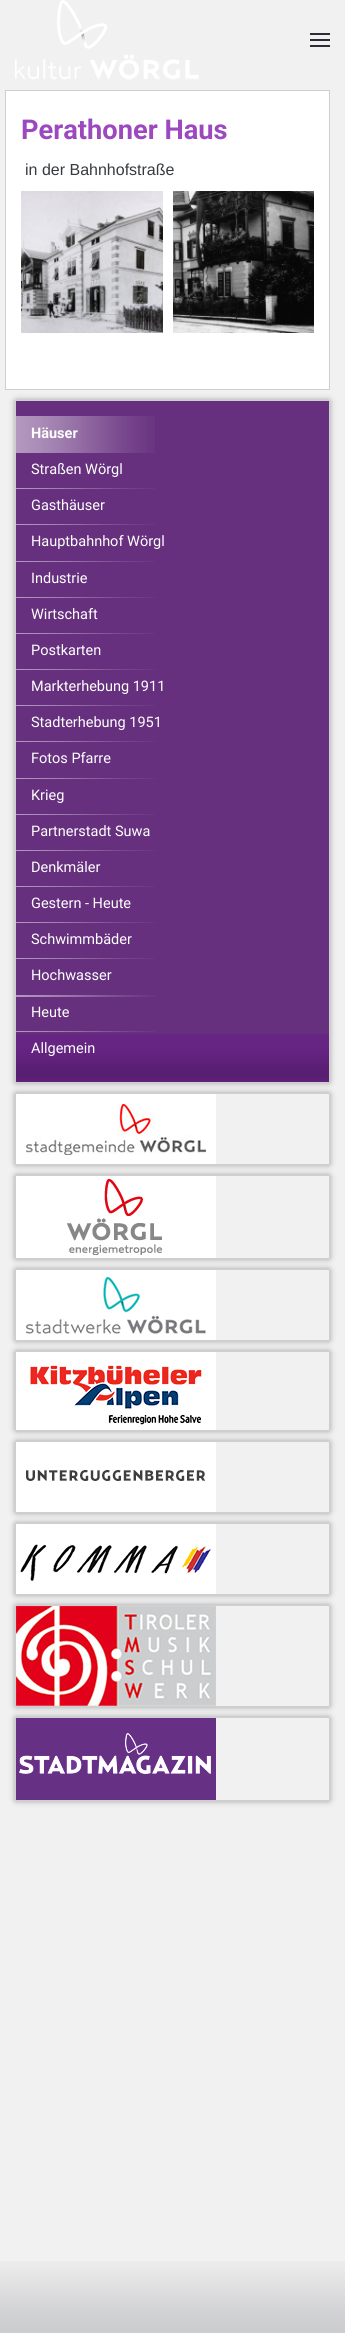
import math
import cairo

surface = cairo.ImageSurface(cairo.FORMAT_RGB24, 345, 2333)
c = cairo.Context(surface)
options = cairo.FontOptions()
options.set_hint_metrics(cairo.HINT_METRICS_OFF)
options.set_hint_style(cairo.HINT_STYLE_NONE)
c.set_font_options(options)
c.set_miter_limit(4)
def C(code):
 c.set_source_rgb(*(v / 255 for v in bytes.fromhex(code[-6:])))
def F(family, size, italic, bold):
 c.select_font_face(family, cairo.FONT_SLANT_ITALIC if italic else cairo.FONT_SLANT_NORMAL, cairo.FONT_WEIGHT_BOLD if bold else cairo.FONT_WEIGHT_NORMAL)
 c.set_font_size(size)
def T(x, y, s):
 c.move_to(x, y)
 c.show_text(s)
def R(x, y, w, h):
 c.rectangle(x, y, w, h)
 c.fill()
def Q(x, y, w, h, r):
 c.new_sub_path()
 for i, (u, v) in enumerate([(x + w - r, y + h - r), (x + r, y + h - r), (x + r, y + r), (x + w - r, y + r)]):
  c.arc(u, v, r, i * math.pi / 2, (i + 1) * math.pi / 2)
 c.close_path()
def S(x, y, w, h, r, blur, alpha):
 c.push_group_with_content(cairo.CONTENT_ALPHA)
 c.set_operator(cairo.OPERATOR_SOURCE)
 for i in range(15, -16, -2):
  e = blur * i / 6
  if min(w, h) + 2 * e > 0:
   c.set_source_rgba(0, 0, 0, alpha * math.erfc((i - 1) / 8.5) / 2)
   Q(x - e, y - e, w + 2 * e, h + 2 * e, max(0, min(r + e + blur * .6, min(w, h) / 2 + e)))
   c.fill()
 c.mask(c.pop_group())
def I(path, x, y, w, h):
 c.save()
 c.set_source_surface(cairo.ImageSurface.create_from_png(path), x, y)
 c.rectangle(x, y, w, h)
 c.fill()
 c.restore()
C('f1f1f1')
c.paint()
I('1.png',0,2261,345,72)
I('2.png',15,0,184,80)
C('2d2e33')
R(310,33,20,2)
R(310,39,20,2)
R(310,45,20,2)
C('ffffff')
c.rectangle(5.5,90.5,324,299)
c.fill_preserve()
C('cfcfcf')
c.set_line_width(1)
c.stroke()
F('Roboto',27.25,0,1)
C('9c49bf')
T(21,139,'Perathoner Haus')
F('Liberation Sans',16,0,0)
C('353b40')
T(25,175,'in der Bahnhofstraße')
I('3.png',21,191,142,142)
I('4.png',173,191,141,142)
C('888888')
S(16,401,313,681,0,3.5,1)
C('66307e')
R(16,401,313,633)
I('5.png',16,1034,313,48)
c.rectangle(15.5,400.5,314,682)
C('cfcfcf')
c.stroke()
I('6.png',16,416,139,36)
F('Roboto',14.5,0,1)
C('ffffff')
T(31,438,'Häuser')
I('7.png',16,452,139,1)
F('Roboto',14.5,0,0)
T(31,474,'Straßen Wörgl')
I('7.png',16,488,139,1)
T(31,510,'Gasthäuser')
I('7.png',16,524,139,1)
T(31,546,'Hauptbahnhof Wörgl')
I('7.png',16,561,139,1)
T(31,583,'Industrie')
I('7.png',16,597,139,1)
T(31,619,'Wirtschaft')
I('7.png',16,633,139,1)
T(31,655,'Postkarten')
I('7.png',16,669,139,1)
T(31,691,'Markterhebung 1911')
I('7.png',16,705,139,1)
T(31,727,'Stadterhebung 1951')
I('7.png',16,741,139,1)
T(31,763,'Fotos Pfarre')
I('7.png',16,778,139,1)
T(31,800,'Krieg')
I('7.png',16,814,139,1)
T(31,836,'Partnerstadt Suwa')
I('7.png',16,850,139,1)
T(31,872,'Denkmäler')
I('7.png',16,886,139,1)
T(31,908,'Gestern - Heute')
I('7.png',16,922,139,1)
T(31,944,'Schwimmbäder')
I('7.png',16,958,139,1)
T(31,980,'Hochwasser')
I('8.png',16,995,139,2)
T(31,1017,'Heute')
I('7.png',16,1031,139,1)
T(31,1053,'Allgemein')
c.save()
c.set_fill_rule(cairo.FILL_RULE_EVEN_ODD)
c.new_path()
c.move_to(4,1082)
c.line_to(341,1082)
c.line_to(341,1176)
c.line_to(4,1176)
c.close_path()
c.move_to(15,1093)
c.line_to(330,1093)
c.line_to(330,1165)
c.line_to(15,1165)
c.close_path()
c.clip()
C('888888')
S(16,1094,313,70,0,3.5,1)
c.restore()
c.rectangle(15.5,1093.5,314,71)
C('cfcfcf')
c.stroke()
I('9.png',16,1094,200,70)
c.save()
c.set_fill_rule(cairo.FILL_RULE_EVEN_ODD)
c.new_path()
c.move_to(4,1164)
c.line_to(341,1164)
c.line_to(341,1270)
c.line_to(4,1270)
c.close_path()
c.move_to(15,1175)
c.line_to(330,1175)
c.line_to(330,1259)
c.line_to(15,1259)
c.close_path()
c.clip()
C('888888')
S(16,1176,313,82,0,3.5,1)
c.restore()
c.rectangle(15.5,1175.5,314,83)
c.stroke()
I('10.png',16,1176,200,82)
c.save()
c.set_fill_rule(cairo.FILL_RULE_EVEN_ODD)
c.new_path()
c.move_to(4,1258)
c.line_to(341,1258)
c.line_to(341,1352)
c.line_to(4,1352)
c.close_path()
c.move_to(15,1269)
c.line_to(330,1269)
c.line_to(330,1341)
c.line_to(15,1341)
c.close_path()
c.clip()
C('888888')
S(16,1270,313,70,0,3.5,1)
c.restore()
c.rectangle(15.5,1269.5,314,71)
c.stroke()
I('11.png',16,1270,200,70)
c.save()
c.set_fill_rule(cairo.FILL_RULE_EVEN_ODD)
c.new_path()
c.move_to(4,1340)
c.line_to(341,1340)
c.line_to(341,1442)
c.line_to(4,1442)
c.close_path()
c.move_to(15,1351)
c.line_to(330,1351)
c.line_to(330,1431)
c.line_to(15,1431)
c.close_path()
c.clip()
C('888888')
S(16,1352,313,78,0,3.5,1)
c.restore()
c.rectangle(15.5,1351.5,314,79)
c.stroke()
I('12.png',16,1352,200,78)
c.save()
c.set_fill_rule(cairo.FILL_RULE_EVEN_ODD)
c.new_path()
c.move_to(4,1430)
c.line_to(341,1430)
c.line_to(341,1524)
c.line_to(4,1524)
c.close_path()
c.move_to(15,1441)
c.line_to(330,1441)
c.line_to(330,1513)
c.line_to(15,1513)
c.close_path()
c.clip()
C('888888')
S(16,1442,313,70,0,3.5,1)
c.restore()
c.rectangle(15.5,1441.5,314,71)
c.stroke()
I('13.png',16,1442,200,70)
c.save()
c.set_fill_rule(cairo.FILL_RULE_EVEN_ODD)
c.new_path()
c.move_to(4,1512)
c.line_to(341,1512)
c.line_to(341,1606)
c.line_to(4,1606)
c.close_path()
c.move_to(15,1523)
c.line_to(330,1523)
c.line_to(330,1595)
c.line_to(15,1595)
c.close_path()
c.clip()
C('888888')
S(16,1524,313,70,0,3.5,1)
c.restore()
c.rectangle(15.5,1523.5,314,71)
c.stroke()
I('14.png',16,1524,200,70)
c.save()
c.set_fill_rule(cairo.FILL_RULE_EVEN_ODD)
c.new_path()
c.move_to(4,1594)
c.line_to(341,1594)
c.line_to(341,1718)
c.line_to(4,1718)
c.close_path()
c.move_to(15,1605)
c.line_to(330,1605)
c.line_to(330,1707)
c.line_to(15,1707)
c.close_path()
c.clip()
C('888888')
S(16,1606,313,100,0,3.5,1)
c.restore()
c.rectangle(15.5,1605.5,314,101)
c.stroke()
I('15.png',16,1606,200,100)
c.save()
c.set_fill_rule(cairo.FILL_RULE_EVEN_ODD)
c.new_path()
c.move_to(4,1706)
c.line_to(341,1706)
c.line_to(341,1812)
c.line_to(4,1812)
c.close_path()
c.move_to(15,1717)
c.line_to(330,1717)
c.line_to(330,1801)
c.line_to(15,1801)
c.close_path()
c.clip()
C('888888')
S(16,1718,313,82,0,3.5,1)
c.restore()
c.rectangle(15.5,1717.5,314,83)
c.stroke()
I('16.png',16,1718,200,82)
surface.write_to_png('o.png')
